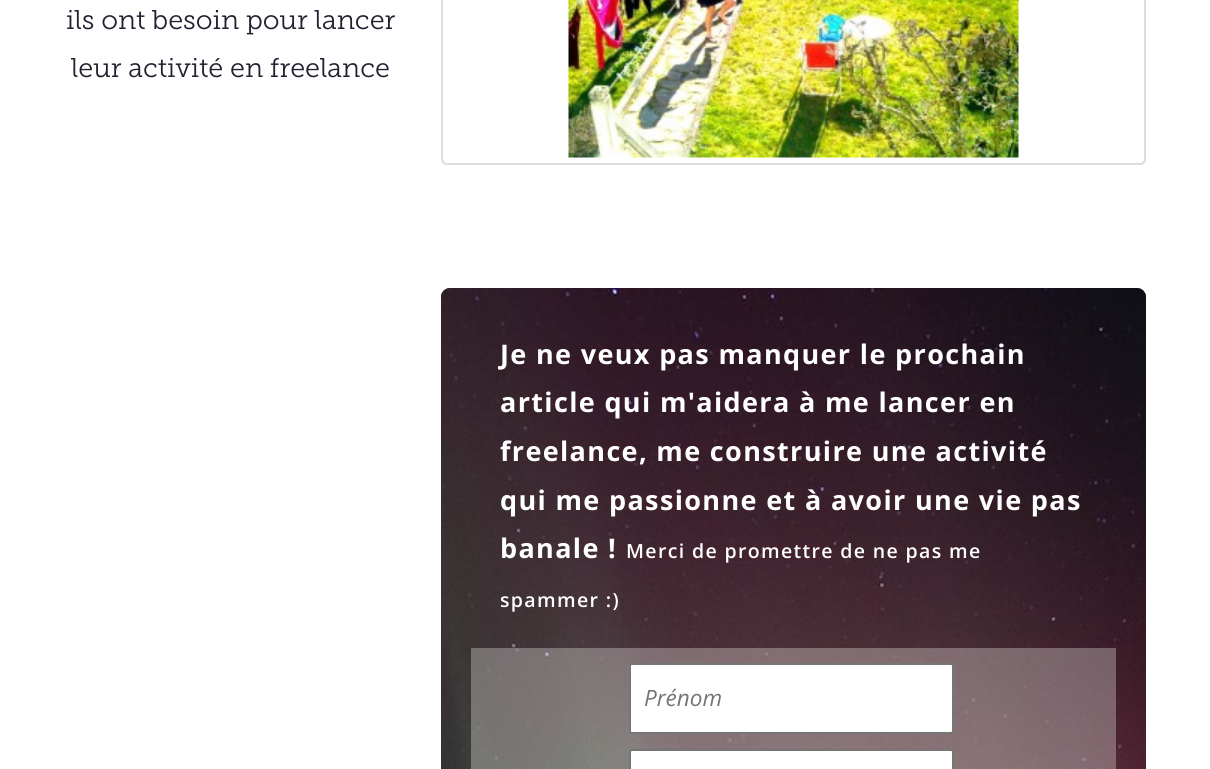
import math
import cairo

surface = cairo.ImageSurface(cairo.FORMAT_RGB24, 1210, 769)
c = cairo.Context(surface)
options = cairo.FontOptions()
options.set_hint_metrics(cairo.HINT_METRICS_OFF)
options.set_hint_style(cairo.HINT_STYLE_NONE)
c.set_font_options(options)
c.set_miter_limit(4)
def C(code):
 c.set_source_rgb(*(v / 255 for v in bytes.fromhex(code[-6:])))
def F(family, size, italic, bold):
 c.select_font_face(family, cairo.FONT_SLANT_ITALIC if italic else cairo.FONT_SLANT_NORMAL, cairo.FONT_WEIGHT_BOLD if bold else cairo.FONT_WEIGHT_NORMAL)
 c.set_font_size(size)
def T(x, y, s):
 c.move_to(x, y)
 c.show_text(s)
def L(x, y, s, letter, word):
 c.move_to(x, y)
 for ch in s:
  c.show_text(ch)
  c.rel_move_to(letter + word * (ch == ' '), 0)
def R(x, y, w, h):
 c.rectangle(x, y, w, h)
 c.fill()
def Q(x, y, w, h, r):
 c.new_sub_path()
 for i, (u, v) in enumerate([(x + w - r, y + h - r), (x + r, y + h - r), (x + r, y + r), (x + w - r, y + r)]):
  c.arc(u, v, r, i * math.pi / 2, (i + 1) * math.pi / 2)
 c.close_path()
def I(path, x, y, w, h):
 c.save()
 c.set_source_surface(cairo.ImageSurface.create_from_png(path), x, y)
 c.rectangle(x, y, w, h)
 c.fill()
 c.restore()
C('ffffff')
c.paint()
F('Museo Slab',27,0,0)
C('212132')
T(66,29,'ils ont besoin pour lancer')
T(71,77,'leur activité en freelance')
Q(442,-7,703,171,5)
C('dddddd')
c.stroke()
I('1.png',568,0,451,158)
C('303043')
Q(441,288,705,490,9)
c.fill()
I('2.png',441,288,705,481)
F('Open Sans',27,0,1)
C('ffffff')
L(500,364,'Je ne veux pas manquer le prochain',1.35,0)
L(500,412,'article qui m\'aidera à me lancer en',1.35,0)
L(500,461,'freelance, me construire une activité',1.35,0)
L(500,510,'qui me passionne et à avoir une vie pas',1.35,0)
L(500,558,'banale !',1.35,0)
F('Open Sans SemiBold',19.5,0,0)
L(626,558,'Merci de promettre de ne pas me',1.35,0)
L(500,607,'spammer :)',1.35,0)
c.set_source_rgba(1,1,0.98,0.3)
R(471,648,645,121)
C('ffffff')
Q(630,664,323,69,2)
c.fill_preserve()
C('767676')
c.stroke()
F('Open Sans',22.5,1,0)
C('757575')
T(644,706,'Prénom')
C('ffffff')
Q(630,750,323,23,2)
c.fill_preserve()
C('767676')
c.stroke()
surface.write_to_png('o.png')
